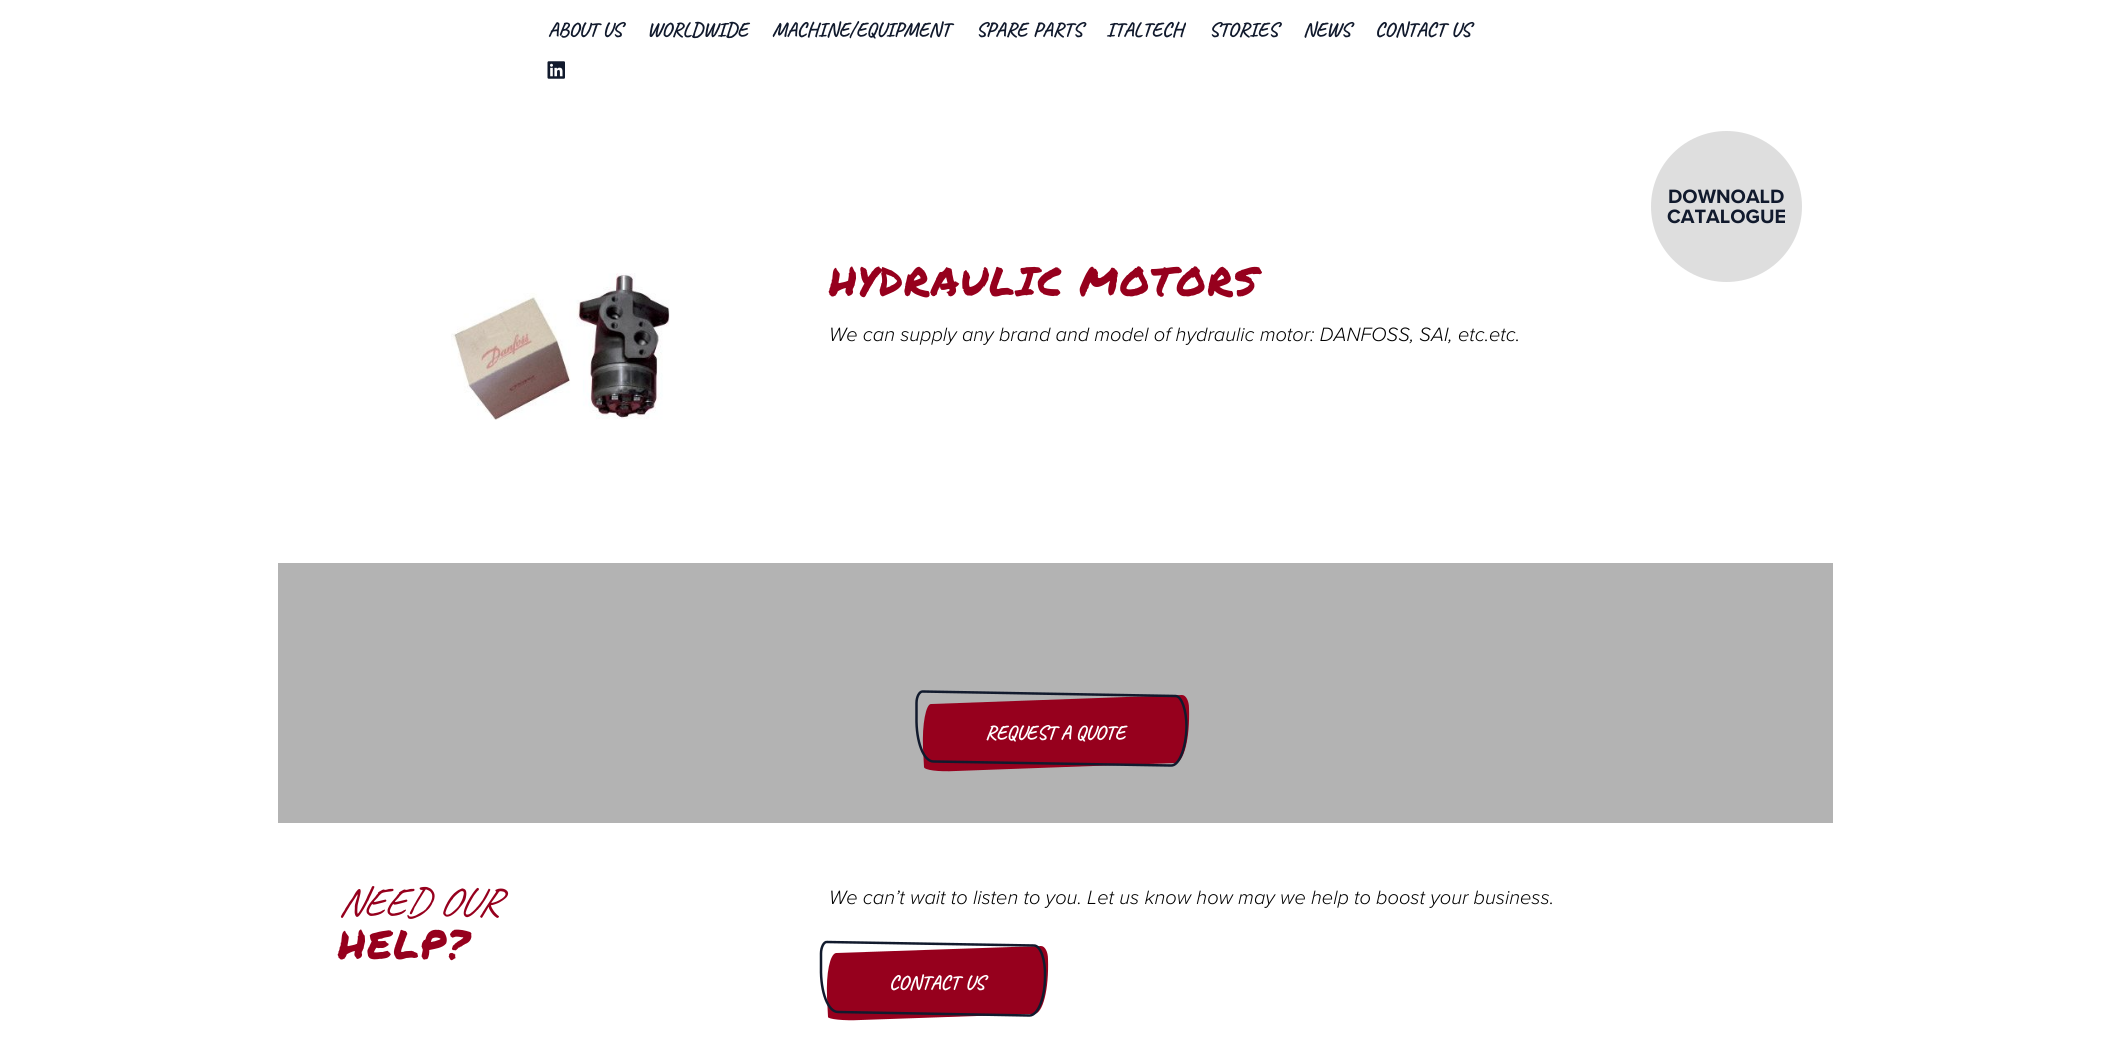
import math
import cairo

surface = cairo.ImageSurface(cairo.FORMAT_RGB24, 2109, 1050)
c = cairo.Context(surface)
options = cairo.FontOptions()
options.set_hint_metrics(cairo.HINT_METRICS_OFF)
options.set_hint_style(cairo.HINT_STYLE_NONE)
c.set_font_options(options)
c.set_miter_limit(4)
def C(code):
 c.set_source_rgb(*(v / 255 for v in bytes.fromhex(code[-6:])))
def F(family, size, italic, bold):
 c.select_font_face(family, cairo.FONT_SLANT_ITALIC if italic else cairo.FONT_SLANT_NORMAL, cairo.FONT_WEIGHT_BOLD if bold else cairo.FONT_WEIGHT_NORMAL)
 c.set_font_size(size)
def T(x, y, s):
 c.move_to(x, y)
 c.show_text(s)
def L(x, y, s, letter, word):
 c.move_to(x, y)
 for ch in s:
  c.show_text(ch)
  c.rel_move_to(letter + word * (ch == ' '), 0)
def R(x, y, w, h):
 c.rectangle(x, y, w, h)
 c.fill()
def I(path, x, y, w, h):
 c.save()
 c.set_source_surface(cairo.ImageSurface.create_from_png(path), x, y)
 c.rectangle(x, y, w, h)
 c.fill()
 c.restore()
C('ffffff')
c.paint()
F('Caveat',20,0,1)
C('111a2d')
T(548,36,'ABOUT US')
T(647,36,'WORLDWIDE')
T(772,36,'MACHINE/EQUIPMENT')
L(976,36,'SPARE PARTS',0,1)
T(1106,36,'ITALTECH')
T(1209,36,'STORIES')
T(1303,36,'NEWS')
L(1375,36,'CONTACT US',0,1)
I('1.png',547,61,18,18)
C('dedede')
c.arc(1726.5,206.5,78.5,0,2 * math.pi)
c.fill_preserve()
C('ffffff')
c.set_line_width(6)
c.stroke()
F('Proxima Nova',20,0,1)
C('111a2d')
T(1668,203,'DOWNOALD')
T(1667,223,'CATALOGUE')
I('2.png',451,273,219,147)
F('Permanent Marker',40,0,0)
C('96001d')
L(829,296,'HYDRAULIC MOTORS',1.25,0)
F('Proxima Nova Light',20,1,0)
C('000000')
T(829,341,'We can supply any brand and model of hydraulic motor: DANFOSS, SAI, etc.etc.')
C('b3b3b3')
R(278,563,1555,260)
C('96001d')
c.new_path()
c.move_to(931,704)
c.line_to(1182,695)
c.curve_to(1186,695,1189,701,1189,708)
c.curve_to(1190,738,1184,763,1175,763)
c.line_to(956,771)
c.curve_to(938,772,924,770,924,767)
c.line_to(923,748)
c.curve_to(922,724,926,704,931,704)
c.close_path()
c.fill()
F('Caveat',20,0,1)
C('ffffff')
T(985,739,'REQUEST A QUOTE')
c.new_path()
c.move_to(922.5,691.5)
c.line_to(1175.5,696)
c.curve_to(1181.5,696,1186.5,710,1186.5,727)
c.curve_to(1186,748.5,1179,766,1171,765.5)
c.line_to(933.5,761.5)
c.curve_to(923.5,761.5,916,741.5,916.5,717.5)
c.line_to(916.5,703)
c.curve_to(916.5,696.5,919.5,691.5,922.5,691.5)
c.close_path()
C('111a2d')
c.set_line_width(2.5)
c.stroke()
F('Caveat',40,1,0)
C('96001d')
L(338,915,'NEED OUR',0,1)
F('Permanent Marker',40,0,0)
L(338,959,'HELP?',1.25,0)
F('Proxima Nova Light',20,1,0)
C('000000')
T(829,904,'We can’t wait to listen to you. Let us know how may we help to boost your business.')
C('96001d')
c.new_path()
c.move_to(836,953)
c.line_to(1041,946)
c.curve_to(1045,946,1048,952,1048,959)
c.curve_to(1049,989,1043,1014,1034,1014)
c.line_to(861,1020)
c.curve_to(843,1021,828,1019,828,1017)
c.line_to(827,997)
c.curve_to(826,973,830,954,836,953)
c.close_path()
c.fill()
F('Caveat',20,0,1)
C('ffffff')
L(889,989,'CONTACT US',0,1)
c.new_path()
c.move_to(827,942)
c.line_to(1034,945.5)
c.curve_to(1040.5,945.5,1045.5,959.5,1045,976.5)
c.curve_to(1045,998,1038,1015.5,1029.5,1015.5)
c.line_to(838,1012)
c.curve_to(828,1012,820.5,992,821,968)
c.line_to(821,953.5)
c.curve_to(821,947,824,941.5,827,942)
c.close_path()
C('111a2d')
c.stroke()
surface.write_to_png('o.png')
